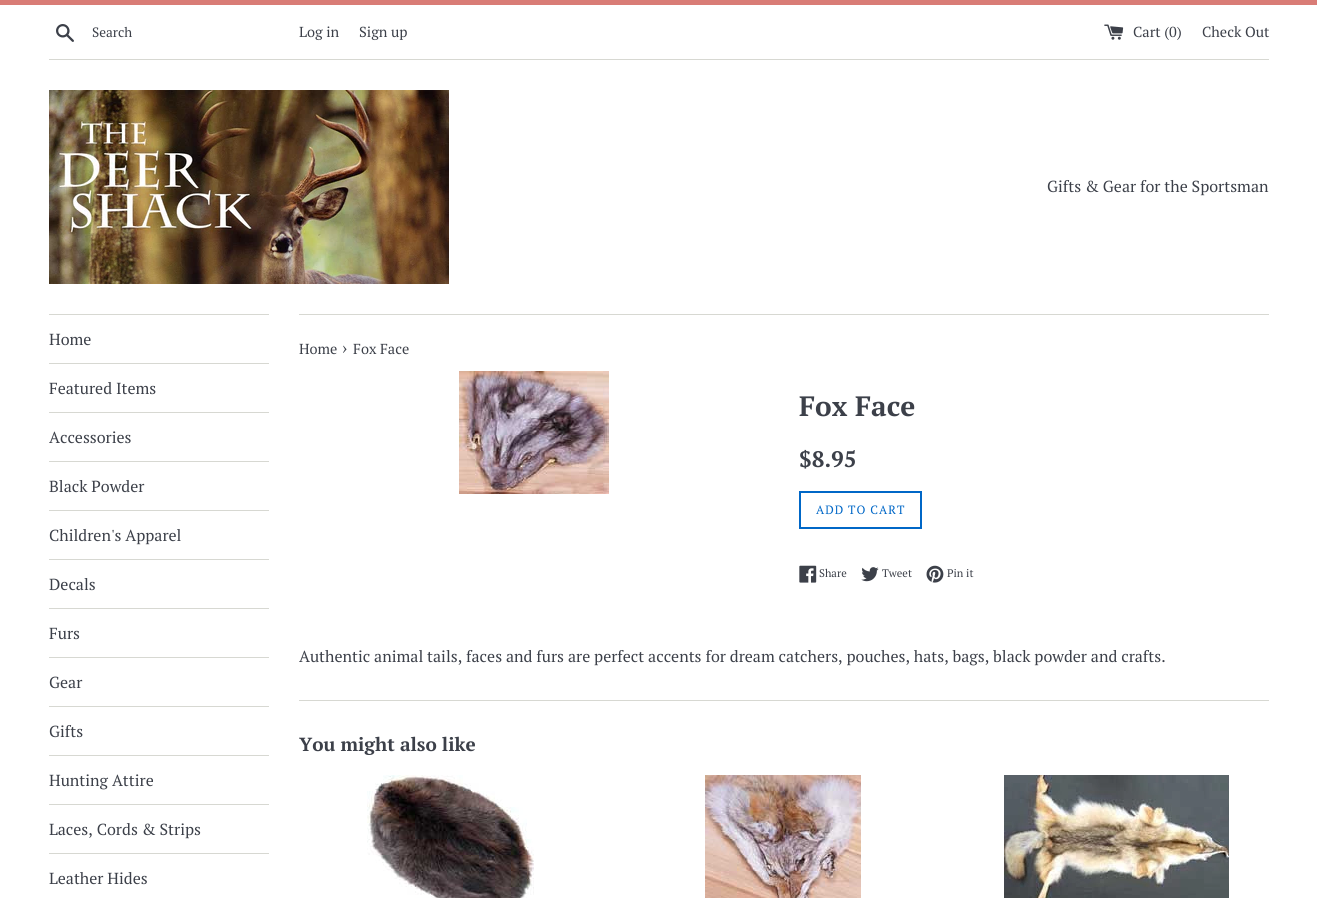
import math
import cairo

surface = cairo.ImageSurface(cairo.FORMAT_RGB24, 1317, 898)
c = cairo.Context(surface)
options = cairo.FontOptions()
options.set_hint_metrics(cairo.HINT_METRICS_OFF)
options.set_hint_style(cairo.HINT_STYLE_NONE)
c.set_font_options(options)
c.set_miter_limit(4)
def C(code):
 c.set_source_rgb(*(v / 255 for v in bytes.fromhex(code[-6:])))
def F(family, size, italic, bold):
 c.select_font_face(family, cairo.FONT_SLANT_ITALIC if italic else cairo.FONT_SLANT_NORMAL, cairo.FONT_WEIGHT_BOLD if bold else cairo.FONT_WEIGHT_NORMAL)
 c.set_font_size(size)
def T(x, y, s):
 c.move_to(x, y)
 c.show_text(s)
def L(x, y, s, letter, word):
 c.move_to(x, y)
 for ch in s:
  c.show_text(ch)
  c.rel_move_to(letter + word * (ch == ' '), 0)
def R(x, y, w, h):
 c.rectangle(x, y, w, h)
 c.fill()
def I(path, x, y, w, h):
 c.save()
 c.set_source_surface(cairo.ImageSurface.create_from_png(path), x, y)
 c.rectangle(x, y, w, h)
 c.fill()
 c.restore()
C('ffffff')
c.paint()
C('d97c76')
R(0,0,1317,5)
I('1.png',56,24,18,18)
F('PT Serif',13.5,0,0)
C('3c4049')
T(92,37,'Search')
F('PT Serif',14.5,0,0)
T(299,37,'Log in')
T(359,37,'Sign up')
I('2.png',1104,24,20,16)
T(1133,37,'Cart (0)')
T(1202,37,'Check Out')
C('d7d8d2')
R(49,59,1220,1)
I('3.png',49,90,400,194)
F('PT Serif',16,0,0)
C('3c4049')
T(1047,192,'Gifts & Gear for the Sportsman')
C('d7d8d2')
R(49,314,220,1)
R(49,363,220,1)
C('3c4049')
T(49,345,'Home')
C('d7d8d2')
R(49,412,220,1)
C('3c4049')
T(49,394,'Featured Items')
C('d7d8d2')
R(49,461,220,1)
C('3c4049')
T(49,443,'Accessories')
C('d7d8d2')
R(49,510,220,1)
C('3c4049')
T(49,492,'Black Powder')
C('d7d8d2')
R(49,559,220,1)
C('3c4049')
T(49,541,'Children\'s Apparel')
C('d7d8d2')
R(49,608,220,1)
C('3c4049')
T(49,590,'Decals')
C('d7d8d2')
R(49,657,220,1)
C('3c4049')
T(49,639,'Furs')
C('d7d8d2')
R(49,706,220,1)
C('3c4049')
T(49,688,'Gear')
C('d7d8d2')
R(49,755,220,1)
C('3c4049')
T(49,737,'Gifts')
C('d7d8d2')
R(49,804,220,1)
C('3c4049')
T(49,786,'Hunting Attire')
C('d7d8d2')
R(49,853,220,1)
C('3c4049')
T(49,835,'Laces, Cords & Strips')
T(49,884,'Leather Hides')
C('d7d8d2')
R(299,314,970,1)
F('PT Serif',14.5,0,0)
C('3c4049')
T(299,354,'Home')
F('PT Serif',18,0,0)
T(342,354,'›')
F('PT Serif',14.5,0,0)
T(353,354,'Fox Face')
I('4.png',459,371,150,123)
F('PT Serif',28,0,1)
T(799,416,'Fox Face')
F('PT Serif',22.5,0,1)
T(799,467,'$8.95')
c.rectangle(800,492,121,36)
C('0067c7')
c.stroke()
F('PT Serif',12,0,0)
L(816,514,'ADD TO CART',1,0)
I('5.png',799,565,18,18)
F('PT Serif',11,0,0)
C('3c4049')
T(819,577,'Share')
I('6.png',861,567,18,15)
T(882,577,'Tweet')
I('7.png',926,565,18,18)
T(947,577,'Pin it')
F('PT Serif',16,0,0)
T(299,662,'Authentic animal tails, faces and furs are perfect accents for dream catchers, pouches, hats, bags, black powder and crafts.')
C('d7d8d2')
R(299,700,970,1)
F('PT Serif',19,0,1)
C('3c4049')
T(299,751,'You might also like')
I('8.png',367,775,167,123)
I('9.png',705,775,156,123)
I('10.png',1004,775,225,123)
surface.write_to_png('o.png')
